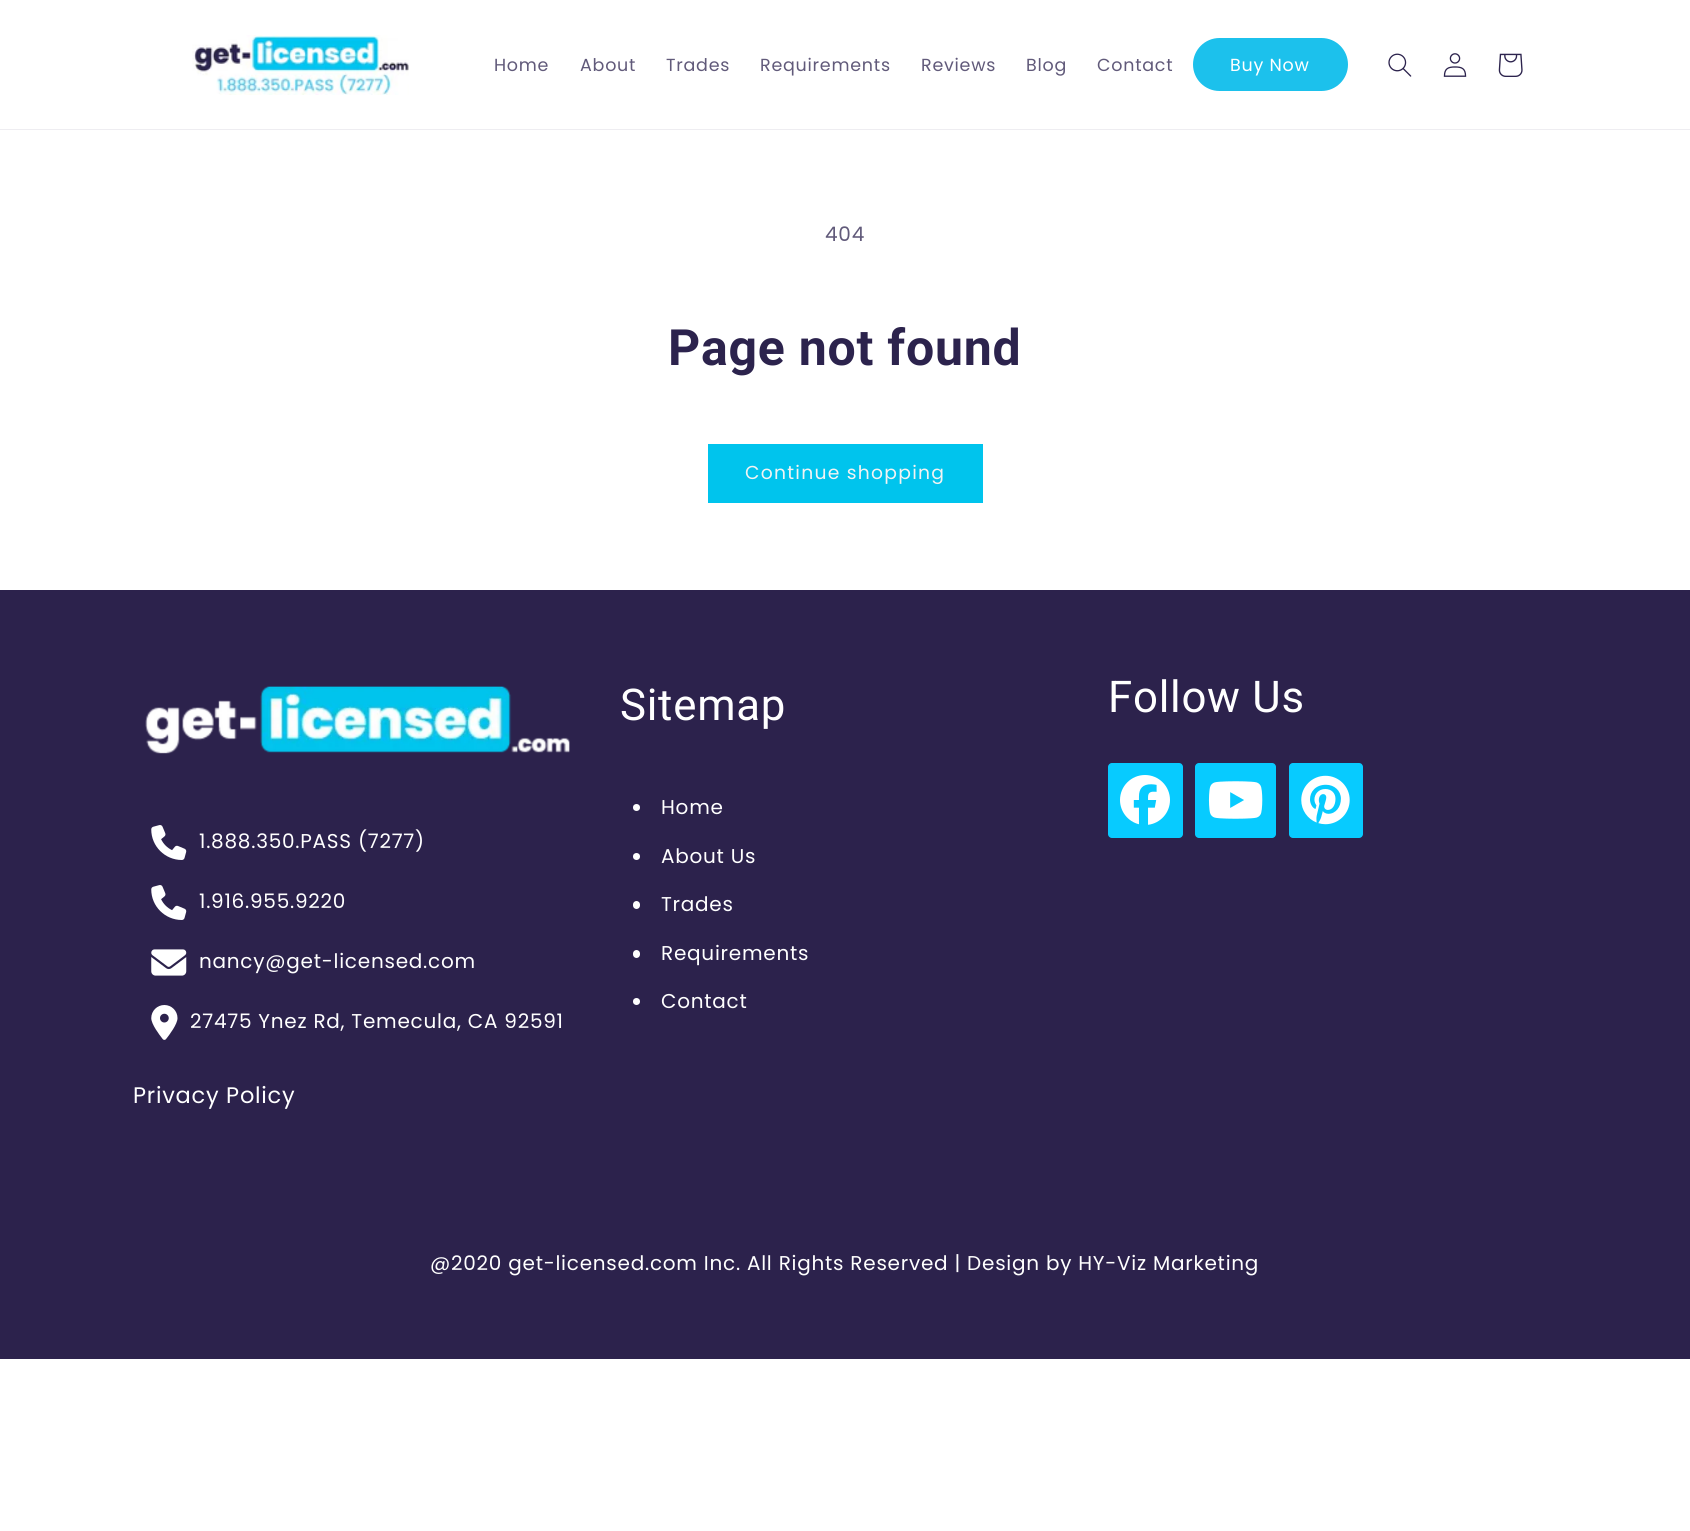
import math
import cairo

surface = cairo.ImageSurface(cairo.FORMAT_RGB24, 1690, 1531)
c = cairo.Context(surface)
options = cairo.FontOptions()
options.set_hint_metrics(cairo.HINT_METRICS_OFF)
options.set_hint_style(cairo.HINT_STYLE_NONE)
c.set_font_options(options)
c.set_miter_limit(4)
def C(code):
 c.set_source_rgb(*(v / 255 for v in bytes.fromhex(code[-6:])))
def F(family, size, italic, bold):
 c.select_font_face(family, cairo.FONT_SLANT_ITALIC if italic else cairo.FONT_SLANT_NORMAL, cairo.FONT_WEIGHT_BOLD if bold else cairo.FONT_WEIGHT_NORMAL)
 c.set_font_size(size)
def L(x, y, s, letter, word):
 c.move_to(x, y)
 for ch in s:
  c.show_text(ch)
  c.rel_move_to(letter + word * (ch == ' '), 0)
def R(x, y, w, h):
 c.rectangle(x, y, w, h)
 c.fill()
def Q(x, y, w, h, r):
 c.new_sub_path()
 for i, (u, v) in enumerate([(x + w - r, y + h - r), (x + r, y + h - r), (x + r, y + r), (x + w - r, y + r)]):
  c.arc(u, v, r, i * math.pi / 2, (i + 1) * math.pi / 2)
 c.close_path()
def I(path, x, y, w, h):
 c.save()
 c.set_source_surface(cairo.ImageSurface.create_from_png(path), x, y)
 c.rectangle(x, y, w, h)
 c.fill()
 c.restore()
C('ffffff')
c.paint()
C('eeedf1')
R(0,129,1690,1)
I('1.png',192,35,217,60)
F('Poppins',17.5,0,0)
C('615a7a')
L(494,71,'Home',.75,0)
L(580,71,'About',.75,0)
L(666,71,'Trades',.75,0)
L(760,71,'Requirements',.75,0)
L(921,71,'Reviews',.75,0)
L(1026,71,'Blog',.75,0)
L(1097,71,'Contact',.75,0)
C('1cc1ec')
Q(1193,38,155,53,26.5)
c.fill()
C('ffffff')
L(1230,71,'Buy Now',.75,0)
I('2.png',1388,53,24,24)
I('3.png',1443,53,24,24)
I('4.png',1498,53,25,24)
F('Poppins',20,0,0)
C('615a7a')
L(825,241,'404',.75,0)
F('Roboto',50,0,1)
C('2c234d')
L(668,365,'Page not found',.75,0)
C('00c4ed')
R(708,444,275,59)
F('Poppins',18.75,0,0)
C('f3f3f3')
L(745,479,'Continue shopping',1.25,0)
C('2c224c')
R(0,590,1690,769)
I('5.png',145,686,425,68)
I('6.png',151,825,36,35)
F('Poppins',20,0,0)
C('ffffff')
L(199,848,'1.888.350.PASS (7277)',.75,0)
I('6.png',151,885,36,35)
L(199,908,'1.916.955.9220',.75,0)
I('7.png',151,949,36,27)
L(199,968,'nancy@get-licensed.com',.75,0)
I('8.png',151,1005,27,35)
L(190,1028,'27475 Ynez Rd, Temecula, CA 92591',.75,0)
F('Poppins',22.5,0,0)
L(133,1103,'Privacy Policy',.75,0)
F('Roboto',43.75,0,0)
L(620,720,'Sitemap',.75,0)
c.new_path()
c.arc(636.5,807.5,3.5,0,2 * math.pi)
c.fill()
F('Poppins',20,0,0)
L(661,814,'Home',.75,0)
c.new_path()
c.arc(636.5,856.5,3.5,0,2 * math.pi)
c.fill()
L(661,863,'About Us',.75,0)
Q(633,901,7,8,3.5)
c.fill()
L(661,911,'Trades',.75,0)
Q(633,950,7,8,3.5)
c.fill()
L(661,960,'Requirements',.75,0)
c.new_path()
c.arc(636.5,1001.5,3.5,0,2 * math.pi)
c.fill()
L(661,1008,'Contact',.75,0)
F('Roboto',43.75,0,0)
L(1108,712,'Follow Us',.75,0)
C('07cbff')
Q(1108,763,75,75,4)
c.fill()
Q(1195,763,81,75,4)
c.fill()
Q(1289,763,74,75,4)
c.fill()
I('9.png',1120,775,50,50)
I('10.png',1208,781,55,38)
I('11.png',1301,775,49,50)
F('Poppins',20,0,0)
C('ffffff')
L(430,1270,'@2020 get-licensed.com Inc. All Rights Reserved | Design by HY-Viz Marketing',.75,0)
surface.write_to_png('o.png')
